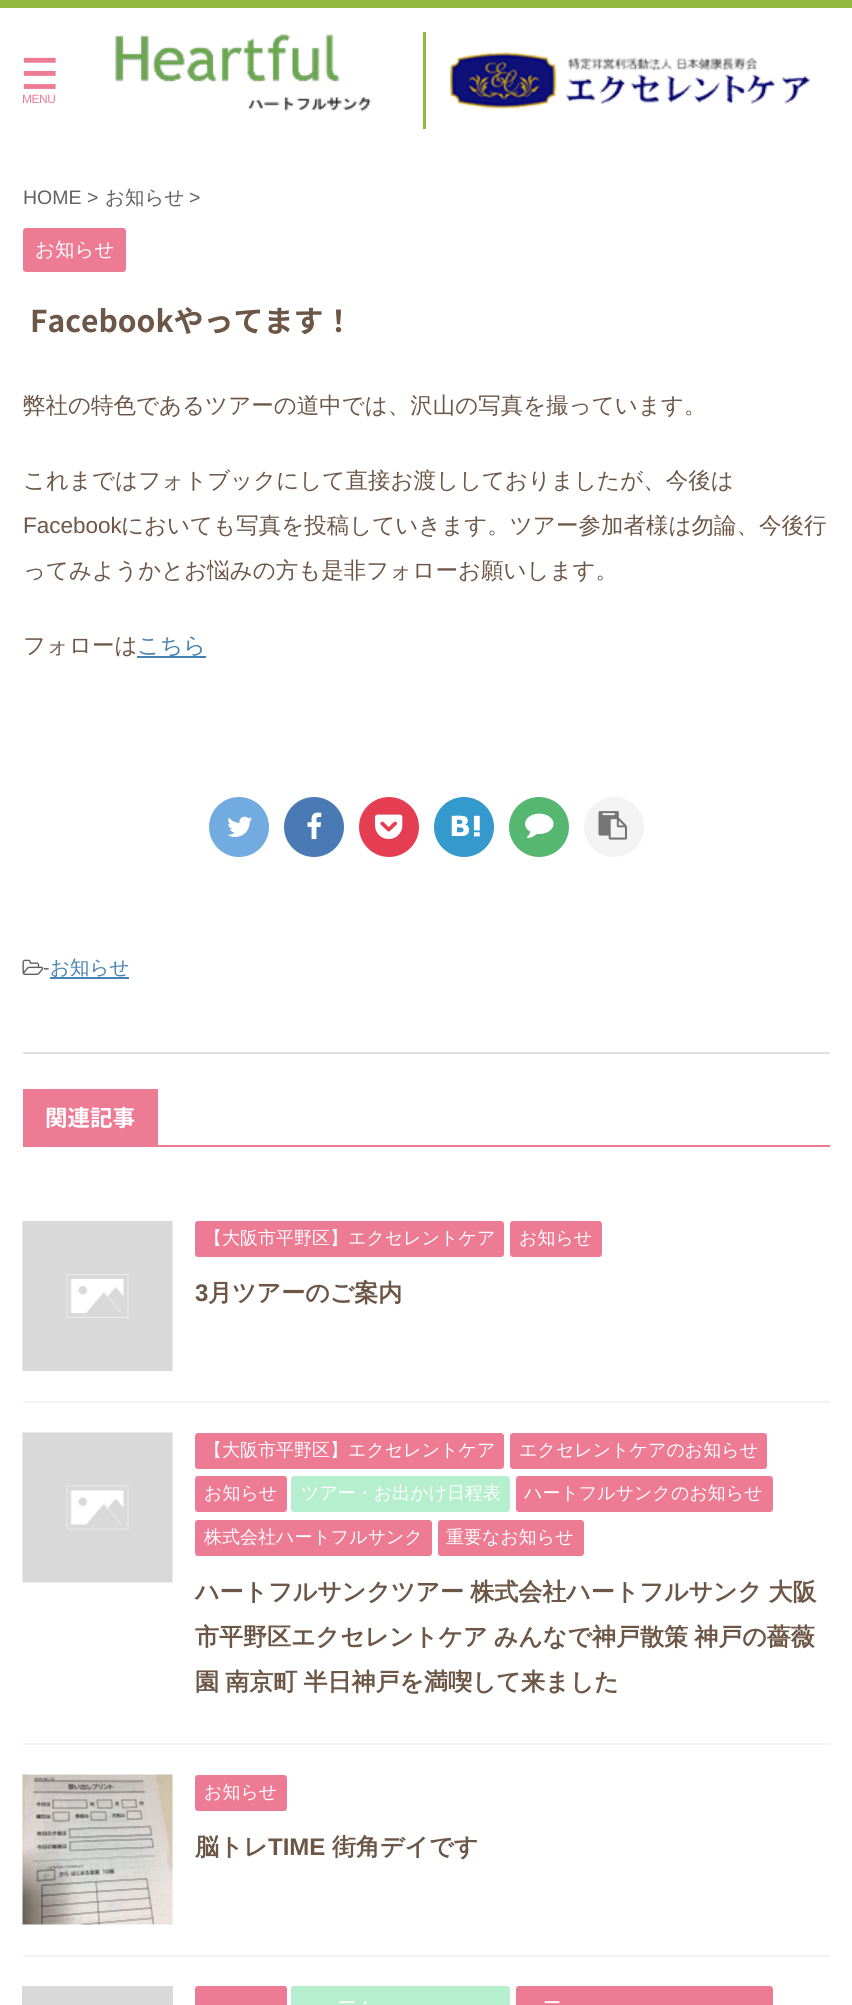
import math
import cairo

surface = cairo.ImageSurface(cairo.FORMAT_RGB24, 852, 2005)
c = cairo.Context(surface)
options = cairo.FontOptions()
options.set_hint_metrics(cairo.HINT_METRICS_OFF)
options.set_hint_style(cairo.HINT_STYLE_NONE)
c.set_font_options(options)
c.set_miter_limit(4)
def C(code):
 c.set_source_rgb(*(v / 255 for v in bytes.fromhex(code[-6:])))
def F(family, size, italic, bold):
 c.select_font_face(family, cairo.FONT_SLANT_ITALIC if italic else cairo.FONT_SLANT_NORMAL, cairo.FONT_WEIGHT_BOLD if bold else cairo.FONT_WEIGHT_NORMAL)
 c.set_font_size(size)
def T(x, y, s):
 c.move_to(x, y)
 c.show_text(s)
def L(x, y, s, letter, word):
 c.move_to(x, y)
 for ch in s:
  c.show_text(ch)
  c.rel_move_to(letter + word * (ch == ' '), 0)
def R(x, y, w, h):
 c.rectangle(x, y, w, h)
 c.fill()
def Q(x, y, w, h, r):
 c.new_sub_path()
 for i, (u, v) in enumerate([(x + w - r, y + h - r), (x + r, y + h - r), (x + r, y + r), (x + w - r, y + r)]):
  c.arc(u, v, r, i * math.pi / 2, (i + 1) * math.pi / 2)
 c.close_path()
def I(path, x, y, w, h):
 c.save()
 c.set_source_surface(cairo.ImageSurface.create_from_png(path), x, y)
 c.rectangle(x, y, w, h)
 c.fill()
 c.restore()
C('92b83e')
c.paint()
C('ffffff')
R(0,8,852,1997)
C('92b83e')
R(423,32,3,97)
I('1.png',23,57,33,32)
F('Liberation Sans',12,0,0)
C('ed7b93')
L(22,103,'MENU',-.5,0)
I('2.png',115,34,256,78)
I('3.png',450,52,360,57)
F('Liberation Sans',19.5,0,0)
C('616161')
T(23,204,'HOME >')
F('WenQuanYi Zen Hei Medium',19.5,0,0)
T(105,204,'お知らせ')
F('Liberation Sans',19.5,0,0)
T(189,204,'>')
C('ed7b93')
Q(23,228,103,44,3)
c.fill()
F('WenQuanYi Zen Hei Medium',19.5,0,0)
C('ffffff')
T(35,256,'お知らせ')
F('Noto Sans JP',30,0,1)
C('6c5646')
T(30,332,'Facebookやってます！')
F('WenQuanYi Zen Hei Medium',22.5,0,0)
T(23,413,'弊社の特色であるツアーの道中では、沢山の写真を撮っています。')
T(23,488,'これまではフォトブックにして直接お渡ししておりましたが、今後は')
F('Liberation Sans',22.5,0,0)
T(23,533,'Facebook')
F('WenQuanYi Zen Hei Medium',22.5,0,0)
T(121,533,'においても写真を投稿していきます。ツアー参加者様は勿論、今後行')
T(23,578,'ってみようかとお悩みの方も是非フォローお願いします。')
T(23,653,'フォローは')
C('4682b4')
R(137,656,69,2)
T(137,653,'こちら')
C('71abdf')
c.new_path()
c.arc(239,827,30,0,2 * math.pi)
c.fill()
I('4.png',227,816,26,21)
C('4a7ab4')
c.arc(314,827,30,0,2 * math.pi)
c.fill()
I('5.png',307,812,15,28)
C('e53e53')
c.arc(389,827,30,0,2 * math.pi)
c.fill()
I('6.png',375,814,28,25)
C('349ace')
c.arc(464,827,30,0,2 * math.pi)
c.fill()
I('7.png',451,815,29,22)
C('56b870')
c.arc(539,827,30,0,2 * math.pi)
c.fill()
I('8.png',525,813,29,25)
C('f3f3f3')
c.arc(614,827,30,0,2 * math.pi)
c.fill()
I('9.png',598,811,29,29)
I('10.png',22,959,22,16)
F('Liberation Sans',19.5,0,0)
C('616161')
T(43,974,'-')
F('WenQuanYi Zen Hei Medium',19.5,0,0)
C('4682b4')
T(50,974,'お知らせ')
R(50,977,79,2)
C('e0e0e0')
R(23,1052,807,2)
C('ed7b93')
R(23,1145,807,2)
R(23,1089,135,56)
F('Noto Sans JP',22.5,0,1)
C('ffffff')
T(45,1126,'関連記事')
C('f3f3f3')
R(23,1401,807,2)
I('11.png',22,1221,151,150)
C('ed7b93')
Q(195,1221,309,36,3)
c.fill()
F('WenQuanYi Zen Hei Medium',18,0,0)
C('ffffff')
T(204,1244,'【大阪市平野区】エクセレントケア')
C('ed7b93')
Q(510,1221,92,36,3)
c.fill()
C('ffffff')
T(519,1244,'お知らせ')
F('Liberation Sans',24,0,1)
C('6c5646')
T(195,1301,'3')
F('WenQuanYi Zen Hei',24,0,1)
T(208,1301,'月ツアーのご案内')
C('f3f3f3')
R(23,1743,807,2)
I('12.png',22,1432,151,151)
C('ed7b93')
Q(195,1433,309,36,3)
c.fill()
F('WenQuanYi Zen Hei Medium',18,0,0)
C('ffffff')
T(204,1456,'【大阪市平野区】エクセレントケア')
C('ed7b93')
Q(510,1433,257,36,3)
c.fill()
C('ffffff')
T(519,1456,'エクセレントケアのお知らせ')
C('ed7b93')
Q(195,1476,92,36,3)
c.fill()
C('ffffff')
T(204,1499,'お知らせ')
C('b6efce')
Q(291,1476,219,36,3)
c.fill()
C('ffffff')
T(301,1499,'ツアー・お出かけ日程表')
C('ed7b93')
Q(516,1476,257,36,3)
c.fill()
C('ffffff')
T(524,1499,'ハートフルサンクのお知らせ')
C('ed7b93')
Q(195,1520,237,36,3)
c.fill()
C('ffffff')
T(204,1543,'株式会社ハートフルサンク')
C('ed7b93')
Q(438,1520,146,36,3)
c.fill()
C('ffffff')
T(446,1543,'重要なお知らせ')
F('WenQuanYi Zen Hei',24,0,1)
C('6c5646')
L(195,1600,'ハートフルサンクツアー 株式会社ハートフルサンク 大阪',0,-1)
L(195,1645,'市平野区エクセレントケア みんなで神戸散策 神戸の薔薇',0,-1)
L(195,1690,'園 南京町 半日神戸を満喫して来ました',0,-1)
C('f3f3f3')
R(23,1955,807,2)
I('13.png',22,1774,151,151)
C('ed7b93')
Q(195,1775,92,36,3)
c.fill()
F('WenQuanYi Zen Hei Medium',18,0,0)
C('ffffff')
T(204,1798,'お知らせ')
F('WenQuanYi Zen Hei',24,0,1)
C('6c5646')
T(195,1855,'脳トレ')
F('Liberation Sans',24,0,1)
T(268,1855,'TIME')
F('WenQuanYi Zen Hei',24,0,1)
T(332,1855,'街角デイです')
C('dad9d9')
R(22,1986,151,19)
C('ed7b93')
Q(195,1986,92,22,3)
c.fill()
C('b6efce')
Q(291,1986,219,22,3)
c.fill()
F('WenQuanYi Zen Hei Medium',18,0,0)
C('ffffff')
T(338,2009,'ー・')
C('ed7b93')
Q(516,1986,257,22,3)
c.fill()
C('ffffff')
T(543,2009,'ー')
surface.write_to_png('o.png')
